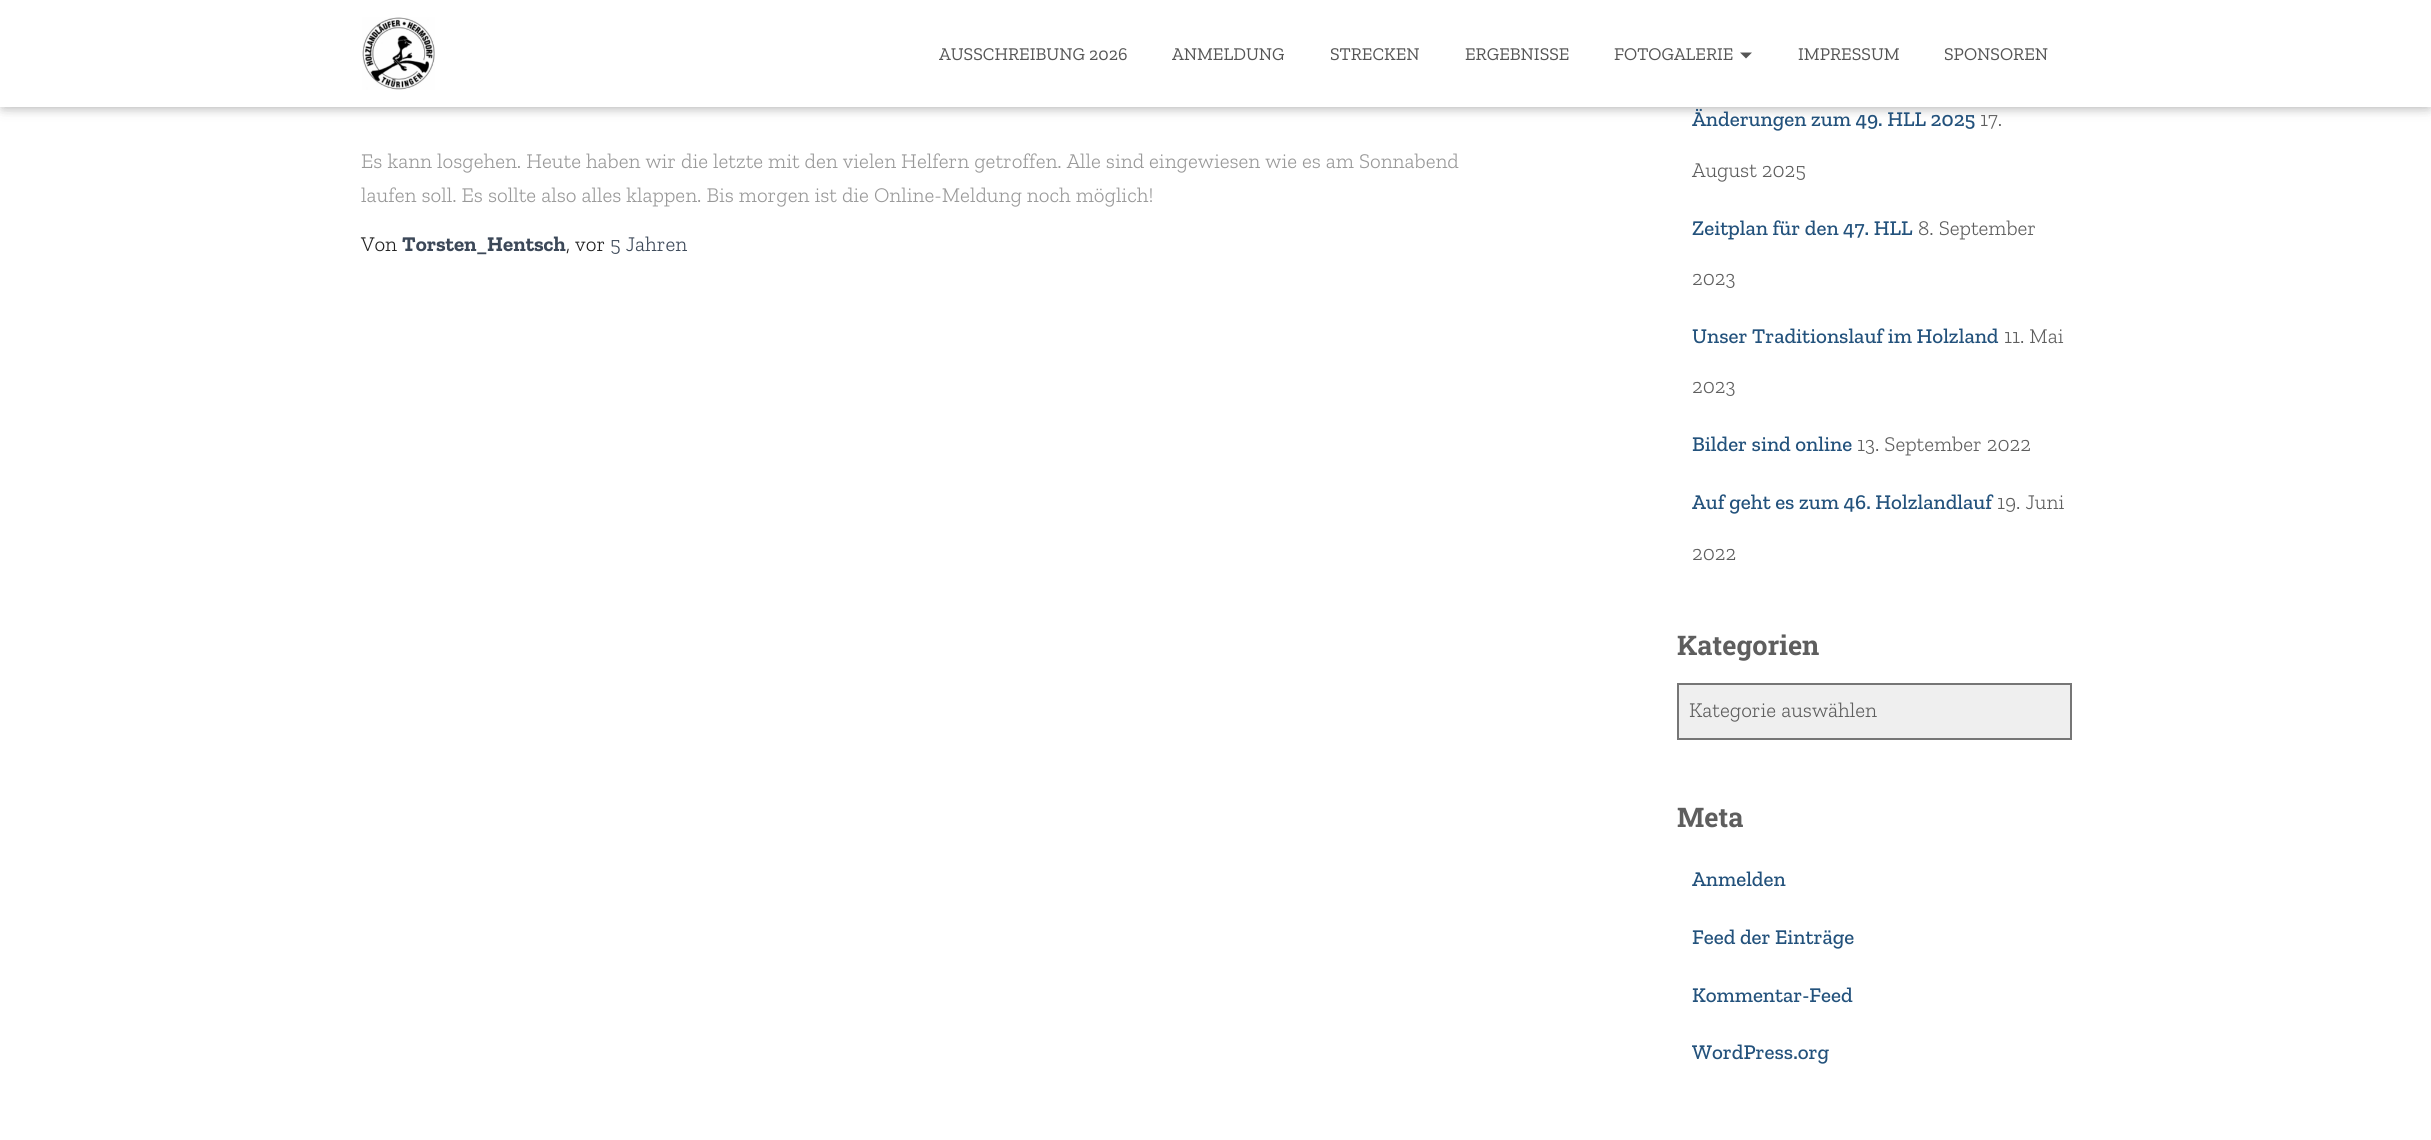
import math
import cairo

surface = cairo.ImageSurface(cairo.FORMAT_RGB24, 2431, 1140)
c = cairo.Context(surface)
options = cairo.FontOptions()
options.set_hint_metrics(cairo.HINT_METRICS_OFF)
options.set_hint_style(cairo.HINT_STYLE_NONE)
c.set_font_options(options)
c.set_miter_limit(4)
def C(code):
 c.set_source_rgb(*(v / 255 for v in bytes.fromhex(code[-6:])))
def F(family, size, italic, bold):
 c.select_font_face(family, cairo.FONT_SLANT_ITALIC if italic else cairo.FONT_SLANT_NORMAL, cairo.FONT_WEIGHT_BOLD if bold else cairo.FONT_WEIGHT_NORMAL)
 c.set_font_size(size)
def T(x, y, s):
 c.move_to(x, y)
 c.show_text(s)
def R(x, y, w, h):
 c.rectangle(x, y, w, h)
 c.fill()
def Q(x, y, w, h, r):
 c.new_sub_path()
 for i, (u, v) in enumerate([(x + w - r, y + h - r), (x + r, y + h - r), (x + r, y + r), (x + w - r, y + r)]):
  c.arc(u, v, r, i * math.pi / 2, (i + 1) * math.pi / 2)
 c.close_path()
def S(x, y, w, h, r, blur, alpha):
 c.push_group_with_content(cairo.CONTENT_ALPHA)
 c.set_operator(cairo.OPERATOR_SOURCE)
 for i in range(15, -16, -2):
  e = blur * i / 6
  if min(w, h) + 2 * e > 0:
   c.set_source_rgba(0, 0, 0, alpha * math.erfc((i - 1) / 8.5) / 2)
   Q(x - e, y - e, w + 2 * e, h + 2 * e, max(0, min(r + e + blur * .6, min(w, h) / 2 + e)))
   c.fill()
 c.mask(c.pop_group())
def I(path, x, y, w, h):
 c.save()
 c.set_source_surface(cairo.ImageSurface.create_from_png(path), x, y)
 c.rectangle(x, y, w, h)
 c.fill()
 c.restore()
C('ffffff')
c.paint()
C('000000')
S(3,9,2426,101,0,4,.1)
S(0,2,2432,106,0,7.5,.12)
S(9,11,2414,88,0,7.5,.42)
C('ffffff')
R(0,0,2431,107)
I('1.png',362,17,73,73)
F('Zilla Slab',18,0,0)
C('555555')
T(939,60,'AUSSCHREIBUNG 2026')
T(1172,60,'ANMELDUNG')
T(1330,60,'STRECKEN')
T(1465,60,'ERGEBNISSE')
T(1614,60,'FOTOGALERIE')
c.new_path()
c.move_to(1740,52.5)
c.line_to(1752,52.5)
c.line_to(1746,58.5)
c.close_path()
c.fill()
T(1798,60,'IMPRESSUM')
T(1944,60,'SPONSOREN')
F('Zilla Slab Light',21,0,0)
C('999999')
T(361,168,'Es kann losgehen. Heute haben wir die letzte mit den vielen Helfern getroffen. Alle sind eingewiesen wie es am Sonnabend')
T(361,202,'laufen soll. Es sollte also alles klappen. Bis morgen ist die Online-Meldung noch möglich!')
C('212121')
T(361,251,'Von')
F('Zilla Slab',21,0,1)
C('3c4858')
T(402,251,'Torsten_Hentsch')
F('Zilla Slab Light',21,0,0)
C('212121')
T(566,251,', vor')
C('3c4858')
T(610,251,'5 Jahren')
F('Zilla Slab Medium',21,0,0)
C('23527c')
T(1692,126,'Änderungen zum 49. HLL 2025')
F('Zilla Slab Light',21,0,0)
C('5e5e5e')
T(1980,126,'17.')
T(1692,177,'August 2025')
F('Zilla Slab Medium',21,0,0)
C('23527c')
T(1692,235,'Zeitplan für den 47. HLL')
F('Zilla Slab Light',21,0,0)
C('5e5e5e')
T(1918,235,'8. September')
T(1692,285,'2023')
F('Zilla Slab Medium',21,0,0)
C('23527c')
T(1692,343,'Unser Traditionslauf im Holzland')
F('Zilla Slab Light',21,0,0)
C('5e5e5e')
T(2004,343,'11. Mai')
T(1692,393,'2023')
F('Zilla Slab Medium',21,0,0)
C('23527c')
T(1692,451,'Bilder sind online')
F('Zilla Slab Light',21,0,0)
C('5e5e5e')
T(1857,451,'13. September 2022')
F('Zilla Slab Medium',21,0,0)
C('23527c')
T(1692,509,'Auf geht es zum 46. Holzlandlauf')
F('Zilla Slab Light',21,0,0)
C('5e5e5e')
T(1997,509,'19. Juni')
T(1692,560,'2022')
F('Roboto Slab',27,0,1)
T(1677,655,'Kategorien')
C('efefef')
c.rectangle(1678,684,393,55)
c.fill_preserve()
C('767676')
c.stroke()
F('Zilla Slab Light',21,0,0)
C('5e5e5e')
T(1689,717,'Kategorie auswählen')
F('Roboto Slab',27,0,1)
T(1677,827,'Meta')
F('Zilla Slab Medium',21,0,0)
C('23527c')
T(1692,886,'Anmelden')
T(1692,944,'Feed der Einträge')
T(1692,1002,'Kommentar-Feed')
T(1692,1059,'WordPress.org')
surface.write_to_png('o.png')
